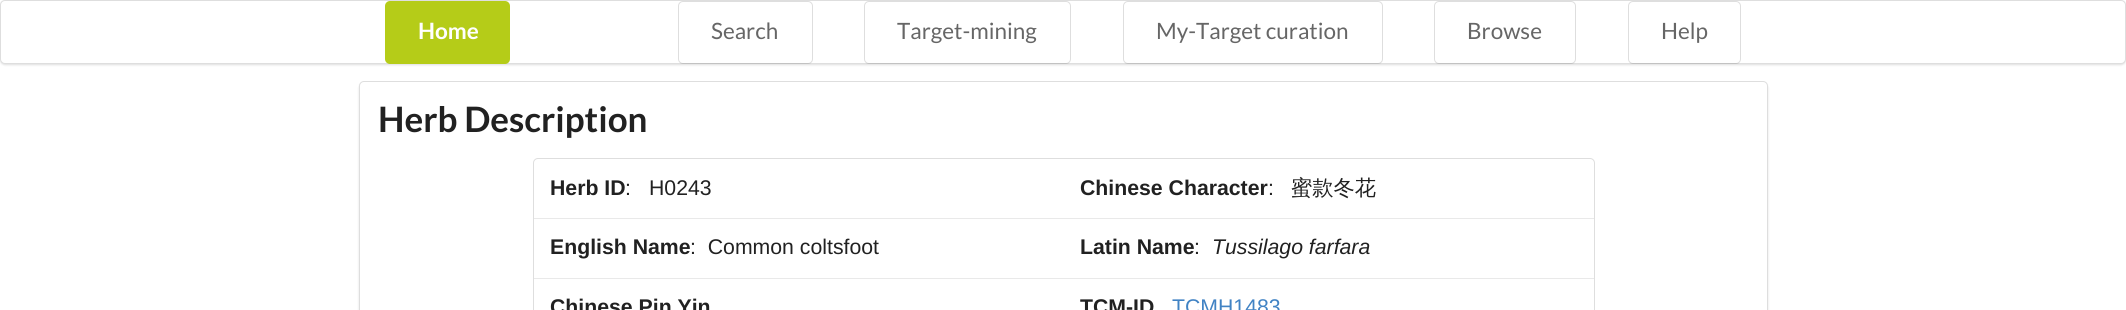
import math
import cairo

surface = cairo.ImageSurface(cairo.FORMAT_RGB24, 2126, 310)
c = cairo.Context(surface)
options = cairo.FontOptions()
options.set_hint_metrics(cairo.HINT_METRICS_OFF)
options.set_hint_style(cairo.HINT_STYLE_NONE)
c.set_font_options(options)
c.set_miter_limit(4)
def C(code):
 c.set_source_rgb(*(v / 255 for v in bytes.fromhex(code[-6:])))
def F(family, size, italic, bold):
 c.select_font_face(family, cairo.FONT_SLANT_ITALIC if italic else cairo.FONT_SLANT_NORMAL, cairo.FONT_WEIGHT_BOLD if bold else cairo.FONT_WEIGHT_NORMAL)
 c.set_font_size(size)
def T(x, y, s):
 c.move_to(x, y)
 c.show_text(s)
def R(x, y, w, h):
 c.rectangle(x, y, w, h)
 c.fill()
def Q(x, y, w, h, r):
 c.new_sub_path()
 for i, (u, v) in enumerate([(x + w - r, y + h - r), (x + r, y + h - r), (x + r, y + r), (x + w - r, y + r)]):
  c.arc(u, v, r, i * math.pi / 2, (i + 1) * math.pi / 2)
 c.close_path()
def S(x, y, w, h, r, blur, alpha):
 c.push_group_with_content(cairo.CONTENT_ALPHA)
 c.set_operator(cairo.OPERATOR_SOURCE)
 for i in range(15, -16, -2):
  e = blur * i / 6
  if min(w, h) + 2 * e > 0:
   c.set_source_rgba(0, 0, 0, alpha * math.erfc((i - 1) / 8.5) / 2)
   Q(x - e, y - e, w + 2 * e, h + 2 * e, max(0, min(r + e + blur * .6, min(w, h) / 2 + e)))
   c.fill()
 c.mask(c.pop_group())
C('ffffff')
c.paint()
C('222426')
S(0,1,2126,64,5,1,.15)
C('ffffff')
Q(0,0,2126,64,5)
c.fill()
Q(.5,.5,2125,63,4.5)
c.set_source_rgba(0.133,0.141,0.149,0.15)
c.set_line_width(1)
c.stroke()
C('b5cc18')
Q(385,1,125,63,5)
c.fill()
F('Lato',22.5,0,1)
C('ffffff')
T(418,39,'Home')
Q(678.5,1.5,134,62,4.5)
c.set_source_rgba(0.133,0.141,0.149,0.15)
c.stroke()
F('Lato',22.5,0,0)
C('666666')
T(711,39,'Search')
Q(864.5,1.5,206,62,4.5)
c.set_source_rgba(0.133,0.141,0.149,0.15)
c.stroke()
C('666666')
T(897,39,'Target-mining')
Q(1123.5,1.5,259,62,4.5)
c.set_source_rgba(0.133,0.141,0.149,0.15)
c.stroke()
C('666666')
T(1156,39,'My-Target curation')
Q(1434.5,1.5,141,62,4.5)
c.set_source_rgba(0.133,0.141,0.149,0.15)
c.stroke()
C('666666')
T(1467,39,'Browse')
Q(1628.5,1.5,112,62,4.5)
c.set_source_rgba(0.133,0.141,0.149,0.15)
c.stroke()
C('666666')
T(1661,39,'Help')
C('222426')
S(359,83,1409,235,5,1,.15)
C('ffffff')
Q(359.5,81.5,1408,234,4.5)
c.fill_preserve()
C('dedede')
c.stroke()
F('Lato',35,0,1)
C('212121')
T(378,132,'Herb Description')
Q(533.5,158.5,1061,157,4.5)
C('dedede')
c.stroke()
F('Liberation Sans',21.25,0,1)
C('212121')
T(550,195,'Herb ID')
F('Liberation Sans',21.25,0,0)
T(625,195,':')
T(649,195,'H0243')
F('Liberation Sans',21.25,0,1)
T(1080,195,'Chinese Character')
F('Liberation Sans',21.25,0,0)
T(1268,195,':')
F('WenQuanYi Zen Hei Medium',21.25,0,0)
T(1291,195,'蜜款冬花')
C('e9e9e9')
R(534,218,1060,1)
F('Liberation Sans',21.25,0,1)
C('212121')
T(550,254,'English Name')
F('Liberation Sans',21.25,0,0)
T(690,254,':  Common coltsfoot')
F('Liberation Sans',21.25,0,1)
T(1080,254,'Latin Name')
F('Liberation Sans',21.25,0,0)
T(1194,254,':')
F('Liberation Sans',21.25,1,0)
T(1212,254,'Tussilago farfara')
C('e9e9e9')
R(534,278,1060,1)
F('Liberation Sans',21.25,0,1)
C('212121')
T(550,314,'Chinese Pin Yin')
T(1080,314,'TCM-ID')
F('Liberation Sans',21.25,0,0)
C('4183c4')
T(1172,314,'TCMH1483')
surface.write_to_png('o.png')
